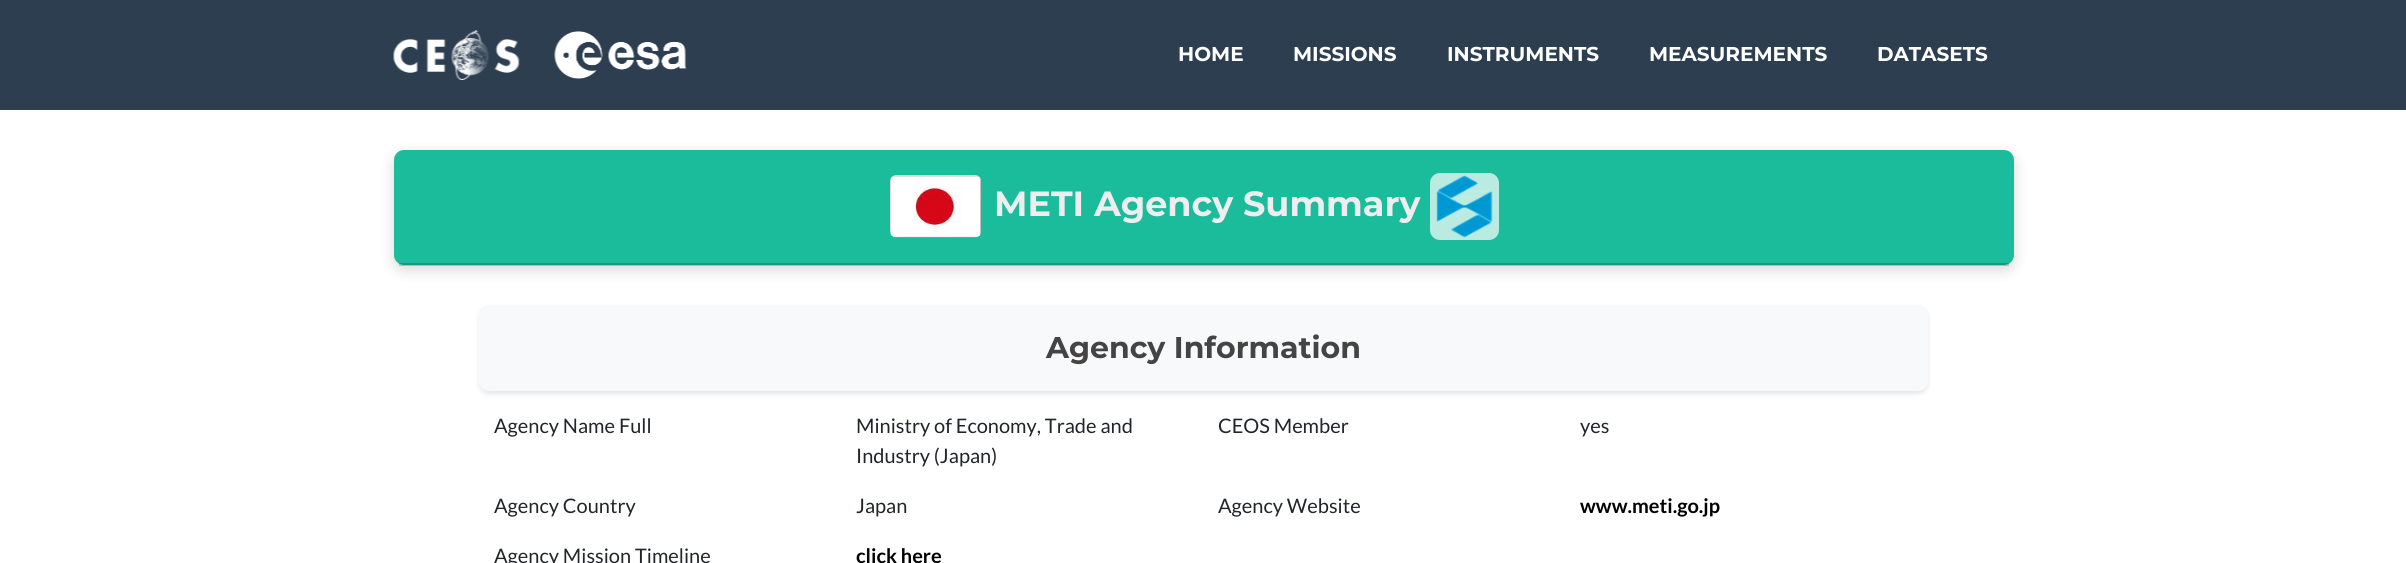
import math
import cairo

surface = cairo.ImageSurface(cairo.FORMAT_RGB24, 2406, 563)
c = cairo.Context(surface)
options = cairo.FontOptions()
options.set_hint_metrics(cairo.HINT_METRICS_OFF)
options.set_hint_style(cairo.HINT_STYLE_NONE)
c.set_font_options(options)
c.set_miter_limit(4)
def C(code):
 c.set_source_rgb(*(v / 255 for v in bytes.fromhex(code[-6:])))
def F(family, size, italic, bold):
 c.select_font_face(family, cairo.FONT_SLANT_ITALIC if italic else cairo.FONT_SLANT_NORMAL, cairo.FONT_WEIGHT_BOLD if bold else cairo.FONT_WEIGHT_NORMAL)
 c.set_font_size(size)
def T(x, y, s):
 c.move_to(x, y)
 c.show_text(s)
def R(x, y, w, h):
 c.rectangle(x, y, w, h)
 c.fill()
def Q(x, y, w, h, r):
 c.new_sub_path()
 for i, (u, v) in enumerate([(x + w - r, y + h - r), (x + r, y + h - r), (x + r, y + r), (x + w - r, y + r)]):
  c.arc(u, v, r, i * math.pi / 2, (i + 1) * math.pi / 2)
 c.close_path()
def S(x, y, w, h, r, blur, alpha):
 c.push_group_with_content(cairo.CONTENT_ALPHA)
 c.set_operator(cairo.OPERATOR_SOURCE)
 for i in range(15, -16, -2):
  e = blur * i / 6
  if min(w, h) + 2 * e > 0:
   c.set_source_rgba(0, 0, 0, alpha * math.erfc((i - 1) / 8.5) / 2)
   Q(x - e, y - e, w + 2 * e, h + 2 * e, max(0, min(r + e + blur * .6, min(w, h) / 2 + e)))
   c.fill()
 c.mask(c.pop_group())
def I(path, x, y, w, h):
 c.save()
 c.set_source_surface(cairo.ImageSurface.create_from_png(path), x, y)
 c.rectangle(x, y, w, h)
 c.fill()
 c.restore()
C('ffffff')
c.paint()
C('2c3e50')
R(0,0,2406,110)
I('1.png',393,30,127,50)
I('2.png',554,31,133,48)
F('Montserrat',20,0,1)
C('ffffff')
T(1178,61,'HOME')
T(1293,61,'MISSIONS')
T(1447,61,'INSTRUMENTS')
T(1649,61,'MEASUREMENTS')
T(1877,61,'DATASETS')
C('000000')
S(394,155,1620,115,10,7.5,.15)
C('1abc9c')
Q(394,150,1620,115,10)
c.fill()
c.set_source_rgba(0,0,0,0.18)
R(399,263,1610,3)
I('3.png',890,175,92,63)
F('Montserrat',35,0,1)
C('eeeeee')
T(994,216,'METI Agency Summary')
C('baebe1')
Q(1430,173,69,67,10)
c.fill()
I('4.png',1436,175,57,63)
C('000000')
S(479,308,1449,86,10,2.5,.1)
C('f8f9fa')
Q(479,305,1449,86,10)
c.fill()
F('Montserrat',30,0,1)
C('444444')
T(1046,358,'Agency Information')
F('Lato',20,0,0)
C('212529')
T(494,433,'Agency Name Full')
T(856,433,'Ministry of Economy, Trade and')
T(856,463,'Industry (Japan)')
T(1218,433,'CEOS Member')
T(1580,433,'yes')
T(494,513,'Agency Country')
T(856,513,'Japan')
T(1218,513,'Agency Website')
F('Lato',20,0,1)
C('000000')
T(1580,513,'www.meti.go.jp')
F('Lato',20,0,0)
C('212529')
T(494,563,'Agency Mission Timeline')
F('Lato',20,0,1)
C('000000')
T(856,563,'click here')
surface.write_to_png('o.png')
